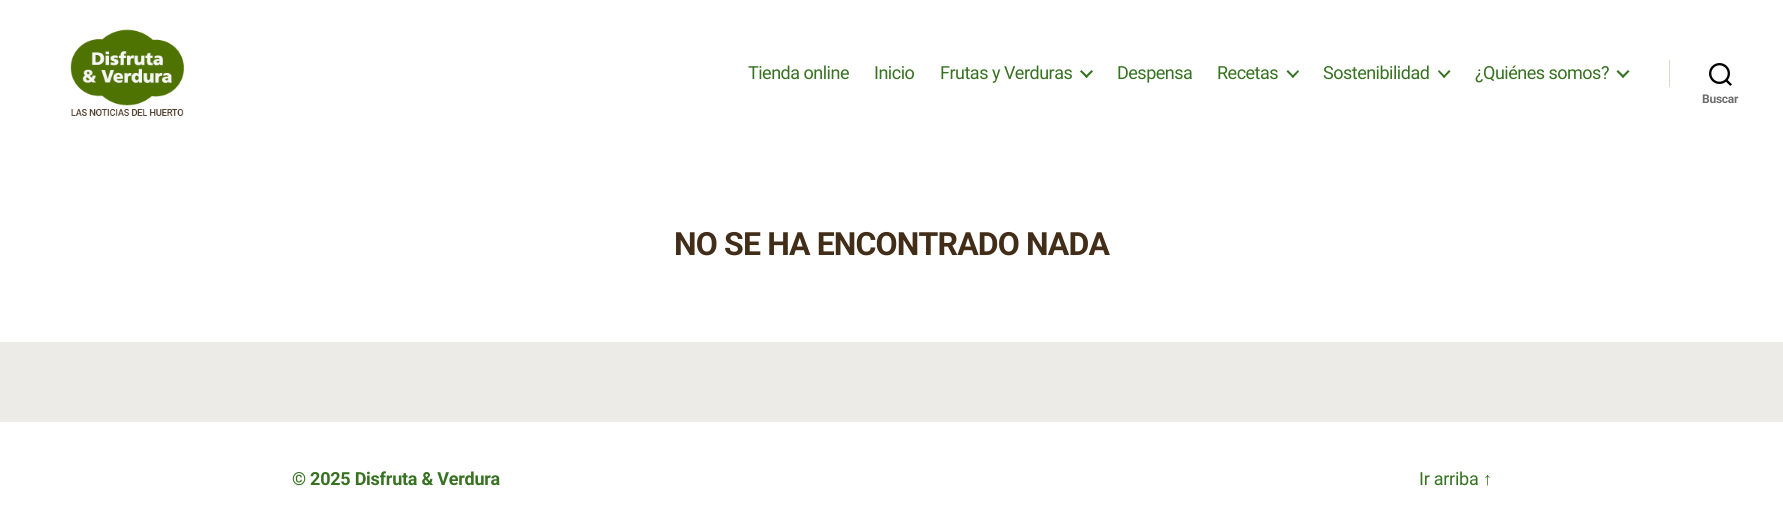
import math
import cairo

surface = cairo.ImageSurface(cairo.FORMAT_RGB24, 1783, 520)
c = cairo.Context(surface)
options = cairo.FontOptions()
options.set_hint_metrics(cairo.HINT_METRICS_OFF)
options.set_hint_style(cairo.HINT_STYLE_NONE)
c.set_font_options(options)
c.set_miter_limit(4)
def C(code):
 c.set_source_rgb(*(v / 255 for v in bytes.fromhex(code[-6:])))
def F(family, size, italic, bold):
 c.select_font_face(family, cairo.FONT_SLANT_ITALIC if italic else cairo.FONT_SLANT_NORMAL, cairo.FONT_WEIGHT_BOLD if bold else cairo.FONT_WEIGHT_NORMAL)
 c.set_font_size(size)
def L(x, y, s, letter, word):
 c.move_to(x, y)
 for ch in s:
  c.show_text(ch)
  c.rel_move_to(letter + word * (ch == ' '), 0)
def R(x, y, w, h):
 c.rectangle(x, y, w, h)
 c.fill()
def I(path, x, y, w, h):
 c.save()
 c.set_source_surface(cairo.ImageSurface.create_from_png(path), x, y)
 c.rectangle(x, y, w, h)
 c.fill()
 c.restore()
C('edebe8')
c.paint()
C('ffffff')
R(0,0,1783,342)
I('1.png',70,29,114,87)
F('Roboto',18,0,0)
C('367221')
L(748,79,'Tienda online',-.5,0)
L(874,79,'Inicio',-.5,0)
L(940,79,'Frutas y Verduras',-.5,0)
c.new_path()
c.move_to(1080,71.5)
c.line_to(1081.5,70)
c.line_to(1088,76.5)
c.line_to(1086.5,78)
c.close_path()
c.fill()
c.new_path()
c.move_to(1085,76.5)
c.line_to(1091.5,70)
c.line_to(1093,71.5)
c.line_to(1086.5,78)
c.close_path()
c.fill()
L(1117,79,'Despensa',-.5,0)
L(1217,79,'Recetas',-.5,0)
c.new_path()
c.move_to(1286.5,71.5)
c.line_to(1288,70)
c.line_to(1294,76.5)
c.line_to(1293,78)
c.close_path()
c.fill()
c.new_path()
c.move_to(1291.5,76.5)
c.line_to(1298,70)
c.line_to(1299,71.5)
c.line_to(1293,78)
c.close_path()
c.fill()
L(1323,79,'Sostenibilidad',-.5,0)
c.new_path()
c.move_to(1438,71.5)
c.line_to(1439,70)
c.line_to(1445.5,76.5)
c.line_to(1444,78)
c.close_path()
c.fill()
c.new_path()
c.move_to(1443,76.5)
c.line_to(1449,70)
c.line_to(1450.5,71.5)
c.line_to(1444,78)
c.close_path()
c.fill()
L(1475,79,'¿Quiénes somos?',-.5,0)
c.new_path()
c.move_to(1616.5,71.5)
c.line_to(1618,70)
c.line_to(1624.5,76.5)
c.line_to(1623,78)
c.close_path()
c.fill()
c.new_path()
c.move_to(1621.5,76.5)
c.line_to(1628,70)
c.line_to(1629.5,71.5)
c.line_to(1623,78)
c.close_path()
c.fill()
C('dcd7ca')
R(1669,60,1,27)
I('2.png',1709,63,23,23)
F('Roboto',12,0,1)
C('6d6d6d')
L(1702,103,'Buscar',-.25,0)
F('Roboto',32,0,1)
C('422d18')
L(674,255,'NO SE HA ENCONTRADO NADA',-.85,0)
C('ffffff')
R(0,422,1783,98)
F('Roboto',18,0,1)
C('367221')
L(292,485,'© 2025 Disfruta & Verdura',-.25,0)
F('Roboto',18,0,0)
L(1419,485,'Ir arriba',-.25,0)
F('Liberation Serif',18,0,0)
L(1483,485,'↑',-.25,0)
surface.write_to_png('o.png')
